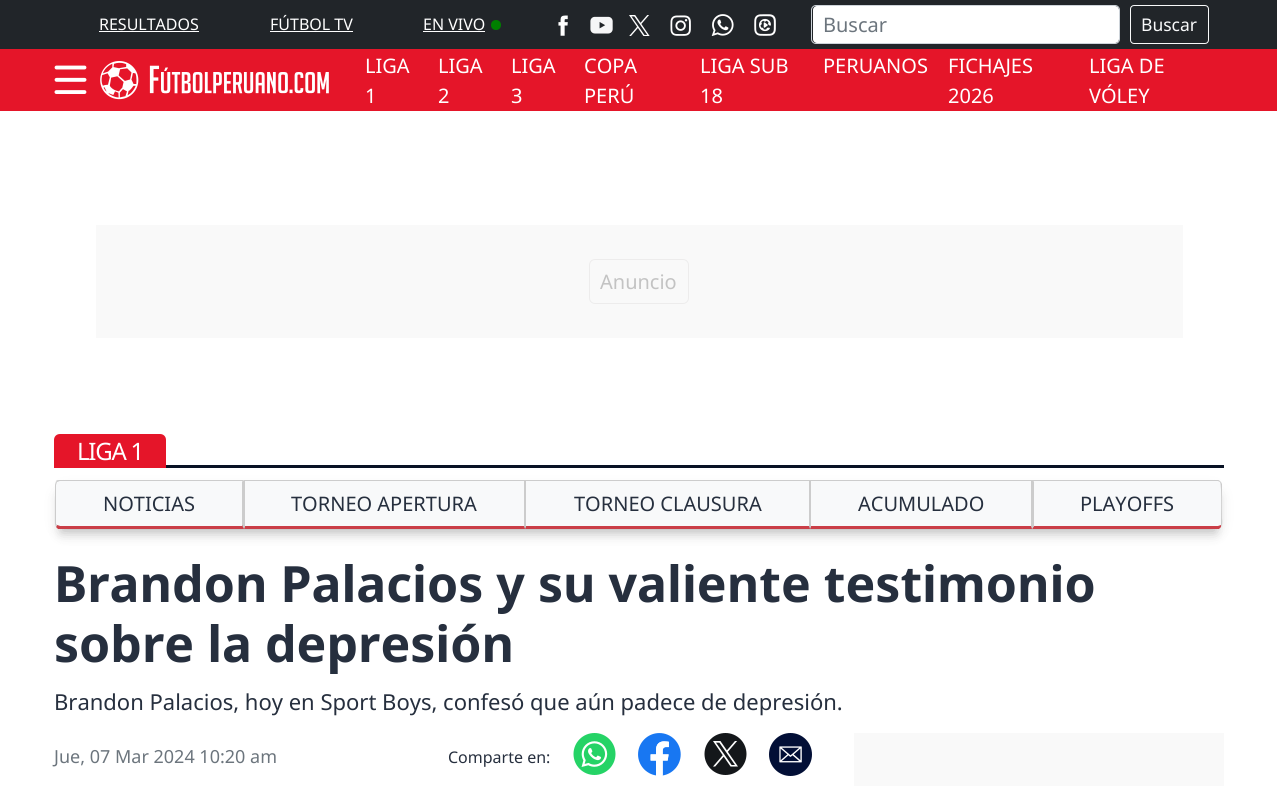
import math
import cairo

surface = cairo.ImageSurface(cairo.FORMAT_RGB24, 1277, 786)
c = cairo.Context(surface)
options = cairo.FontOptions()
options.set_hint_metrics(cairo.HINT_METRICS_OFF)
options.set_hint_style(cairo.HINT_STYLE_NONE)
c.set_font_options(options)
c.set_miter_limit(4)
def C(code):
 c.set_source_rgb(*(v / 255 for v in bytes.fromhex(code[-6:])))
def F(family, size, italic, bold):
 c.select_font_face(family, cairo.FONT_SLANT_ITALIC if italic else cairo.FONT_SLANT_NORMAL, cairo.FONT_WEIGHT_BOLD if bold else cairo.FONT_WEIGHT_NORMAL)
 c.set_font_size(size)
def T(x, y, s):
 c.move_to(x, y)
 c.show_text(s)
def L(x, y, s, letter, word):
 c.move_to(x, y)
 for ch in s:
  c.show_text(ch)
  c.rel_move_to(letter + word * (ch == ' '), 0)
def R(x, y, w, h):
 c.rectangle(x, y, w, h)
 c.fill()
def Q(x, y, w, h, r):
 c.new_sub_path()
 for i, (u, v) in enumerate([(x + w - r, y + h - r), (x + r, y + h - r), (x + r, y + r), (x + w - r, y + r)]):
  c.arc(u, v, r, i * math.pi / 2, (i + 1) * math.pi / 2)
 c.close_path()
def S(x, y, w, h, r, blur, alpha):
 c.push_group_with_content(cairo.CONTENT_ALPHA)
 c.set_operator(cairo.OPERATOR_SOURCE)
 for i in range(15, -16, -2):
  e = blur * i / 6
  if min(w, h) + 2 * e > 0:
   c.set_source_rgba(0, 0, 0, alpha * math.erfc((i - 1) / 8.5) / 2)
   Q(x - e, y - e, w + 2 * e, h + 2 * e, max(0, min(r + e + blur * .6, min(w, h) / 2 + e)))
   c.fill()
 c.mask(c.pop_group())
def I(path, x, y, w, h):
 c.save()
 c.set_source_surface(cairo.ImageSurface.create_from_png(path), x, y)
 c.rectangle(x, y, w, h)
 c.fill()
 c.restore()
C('ffffff')
c.paint()
C('212529')
R(0,0,1277,49)
F('Noto Sans',16,0,0)
C('ffffff')
T(99,30,'RESULTADOS')
R(99,31,100,1)
T(270,30,'FÚTBOL TV')
R(270,31,83,1)
T(423,30,'EN VIVO')
R(423,31,62,1)
C('008000')
c.new_path()
c.arc(496,25,5,0,2 * math.pi)
c.fill()
I('1.png',558,15,10,21)
I('2.png',590,16,23,18)
I('3.png',629,15,21,21)
I('4.png',670,15,21,21)
I('5.png',711,14,23,22)
I('6.png',754,14,22,22)
C('ffffff')
Q(813,6,306,37,4)
c.fill()
Q(811.5,5.5,308,38,4.5)
C('ced4da')
c.set_line_width(1)
c.stroke()
F('Noto Sans',20,0,0)
C('6c757d')
T(823,32,'Buscar')
Q(1130.5,5.5,78,38,3.5)
C('f8f9fa')
c.stroke()
F('Noto Sans',17.5,0,0)
T(1141,31,'Buscar')
C('e51529')
R(0,49,1277,62)
I('7.png',54,65,33,29)
I('8.png',100,61,229,39)
F('Noto Sans',20,0,0)
C('ffffff')
T(365,73,'LIGA')
T(365,103,'1')
T(438,73,'LIGA')
T(438,103,'2')
T(511,73,'LIGA')
T(511,103,'3')
T(584,73,'COPA')
T(584,103,'PERÚ')
T(700,73,'LIGA SUB')
T(700,103,'18')
T(823,73,'PERUANOS')
T(948,73,'FICHAJES')
T(948,103,'2026')
T(1089,73,'LIGA DE')
T(1089,103,'VÓLEY')
C('f9f9f9')
R(96,225,1087,113)
Q(589.5,259.5,99,44,5.5)
C('edecec')
c.stroke()
C('c3c3c3')
T(600,289,'Anuncio')
C('081224')
R(166,465,1058,3)
C('e51529')
c.new_path()
c.move_to(60,434)
c.line_to(160,434)
c.curve_to(163.5,434,166,436.5,166,440)
c.line_to(166,468)
c.line_to(54,468)
c.line_to(54,440)
c.curve_to(54,436.5,56.5,434,60,434)
c.close_path()
c.fill()
F('Noto Sans',24,0,0)
C('ffffff')
L(77,460,'LIGA 1',-1.25,0)
C('000000')
S(61,496,1155,37,0,6,.2)
S(65,496,1148,29,0,9.5,.2)
C('f8f9fa')
c.new_path()
c.move_to(60,481)
c.line_to(242,481)
c.line_to(242,526)
c.line_to(60,526)
c.curve_to(58,526,56,525,56,524)
c.line_to(56,485)
c.curve_to(56,483,58,481,60,481)
c.close_path()
c.fill()
C('cccccc')
c.new_path()
c.move_to(60,480)
c.curve_to(58,480,57,480,56,481)
c.line_to(57,482)
c.curve_to(58,482,59,481,60,481)
c.line_to(242,481)
c.line_to(242,482)
c.line_to(244,480)
c.close_path()
c.fill()
c.new_path()
c.move_to(244,480)
c.line_to(242,482)
c.line_to(242,525)
c.line_to(244,529)
c.close_path()
c.fill()
C('ca3e47')
c.new_path()
c.move_to(244,529)
c.line_to(58,529)
c.line_to(56,527)
c.line_to(57,525)
c.line_to(60,526)
c.line_to(242,526)
c.line_to(242,525)
c.close_path()
c.fill()
C('cccccc')
c.new_path()
c.move_to(55,485)
c.line_to(55,524)
c.line_to(56,527)
c.line_to(57,525)
c.line_to(56,524)
c.line_to(56,485)
c.line_to(57,482)
c.line_to(56,481)
c.curve_to(56,482,55,484,55,485)
c.close_path()
c.fill()
F('Noto Sans',20,0,0)
C('262f3e')
T(103,511,'NOTICIAS')
C('f8f9fa')
R(245,481,279,45)
C('cccccc')
R(244,480,789,1)
c.new_path()
c.move_to(525,480)
c.line_to(525,529)
c.line_to(524,526)
c.line_to(524,481)
c.close_path()
c.fill()
C('ca3e47')
c.new_path()
c.move_to(525,529)
c.line_to(244,529)
c.line_to(245,526)
c.line_to(524,526)
c.close_path()
c.fill()
C('cccccc')
c.new_path()
c.move_to(244,529)
c.line_to(244,480)
c.line_to(245,481)
c.line_to(245,526)
c.close_path()
c.fill()
C('262f3e')
T(291,511,'TORNEO APERTURA')
C('f8f9fa')
R(526,481,283,45)
C('cccccc')
c.new_path()
c.move_to(810,480)
c.line_to(810,529)
c.line_to(809,526)
c.line_to(809,481)
c.close_path()
c.fill()
C('ca3e47')
c.new_path()
c.move_to(810,529)
c.line_to(525,529)
c.line_to(526,526)
c.line_to(809,526)
c.close_path()
c.fill()
C('cccccc')
c.new_path()
c.move_to(525,529)
c.line_to(525,480)
c.line_to(526,481)
c.line_to(526,526)
c.close_path()
c.fill()
C('262f3e')
T(574,511,'TORNEO CLAUSURA')
C('f8f9fa')
R(811,481,220,45)
C('cccccc')
c.new_path()
c.move_to(1032,480)
c.line_to(1032,529)
c.line_to(1031,526)
c.line_to(1031,481)
c.close_path()
c.fill()
C('ca3e47')
c.new_path()
c.move_to(1032,529)
c.line_to(810,529)
c.line_to(811,526)
c.line_to(1031,526)
c.close_path()
c.fill()
C('cccccc')
c.new_path()
c.move_to(810,529)
c.line_to(810,480)
c.line_to(811,481)
c.line_to(811,526)
c.close_path()
c.fill()
C('262f3e')
T(858,511,'ACUMULADO')
C('f8f9fa')
c.new_path()
c.move_to(1034,481)
c.line_to(1218,481)
c.curve_to(1220,481,1221,483,1221,485)
c.line_to(1221,524)
c.curve_to(1221,525,1220,526,1218,526)
c.line_to(1034,526)
c.close_path()
c.fill()
C('cccccc')
c.new_path()
c.move_to(1034,481)
c.line_to(1218,481)
c.line_to(1220,482)
c.line_to(1221,482)
c.curve_to(1220,481,1219,480,1218,480)
c.line_to(1032,480)
c.line_to(1034,482)
c.close_path()
c.fill()
c.new_path()
c.move_to(1221,482)
c.line_to(1222,484)
c.line_to(1222,518)
c.curve_to(1222,519,1223,524,1221,527)
c.line_to(1221,525)
c.curve_to(1221,524,1222,485,1220,482)
c.close_path()
c.fill()
C('ca3e47')
c.new_path()
c.move_to(1221,527)
c.line_to(1219,529)
c.line_to(1032,529)
c.line_to(1034,526)
c.line_to(1218,526)
c.line_to(1221,525)
c.close_path()
c.fill()
C('cccccc')
c.new_path()
c.move_to(1032,529)
c.line_to(1034,526)
c.line_to(1034,482)
c.line_to(1032,480)
c.close_path()
c.fill()
C('262f3e')
T(1080,511,'PLAYOFFS')
F('Noto Sans',50,0,1)
T(54,602,'Brandon Palacios y su valiente testimonio')
T(54,662,'sobre la depresión')
F('Noto Sans',22,0,0)
T(54,710,'Brandon Palacios, hoy en Sport Boys, confesó que aún padece de depresión.')
F('Noto Sans',18,0,0)
C('6c757d')
T(54,763,'Jue, 07 Mar 2024 10:20 am')
F('Noto Sans',16,0,0)
C('262f3e')
T(448,763,'Comparte en:')
I('9.png',573,733,43,42)
I('10.png',638,733,43,43)
I('11.png',704,733,43,42)
I('12.png',769,733,43,43)
C('f9f9f9')
R(854,733,370,53)
surface.write_to_png('o.png')
